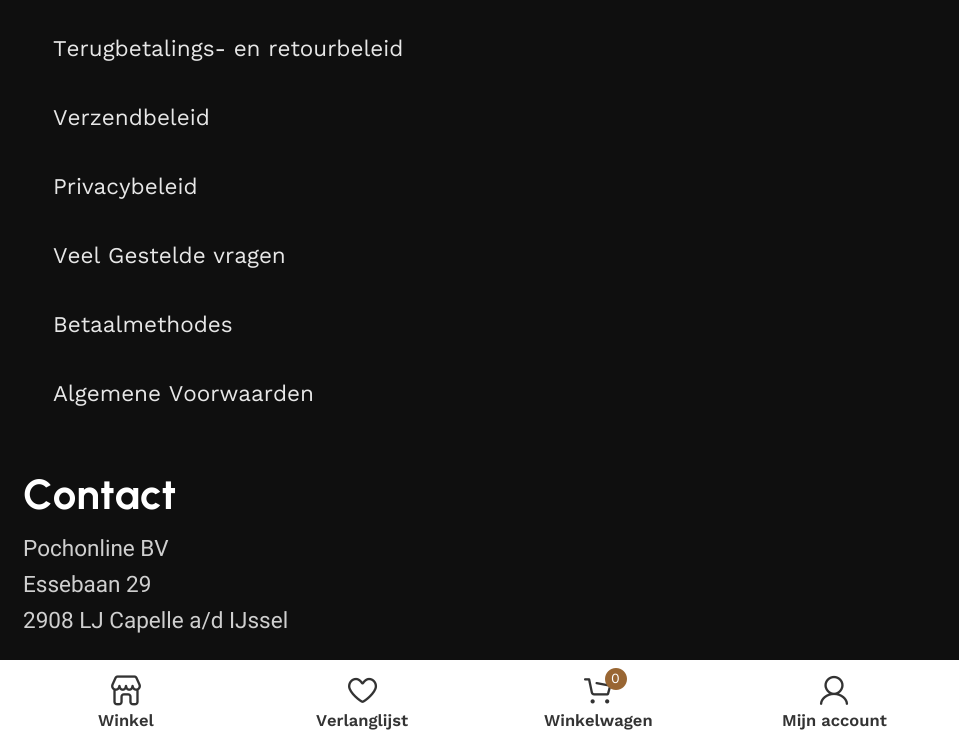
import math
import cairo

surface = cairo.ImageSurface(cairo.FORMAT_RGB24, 959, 742)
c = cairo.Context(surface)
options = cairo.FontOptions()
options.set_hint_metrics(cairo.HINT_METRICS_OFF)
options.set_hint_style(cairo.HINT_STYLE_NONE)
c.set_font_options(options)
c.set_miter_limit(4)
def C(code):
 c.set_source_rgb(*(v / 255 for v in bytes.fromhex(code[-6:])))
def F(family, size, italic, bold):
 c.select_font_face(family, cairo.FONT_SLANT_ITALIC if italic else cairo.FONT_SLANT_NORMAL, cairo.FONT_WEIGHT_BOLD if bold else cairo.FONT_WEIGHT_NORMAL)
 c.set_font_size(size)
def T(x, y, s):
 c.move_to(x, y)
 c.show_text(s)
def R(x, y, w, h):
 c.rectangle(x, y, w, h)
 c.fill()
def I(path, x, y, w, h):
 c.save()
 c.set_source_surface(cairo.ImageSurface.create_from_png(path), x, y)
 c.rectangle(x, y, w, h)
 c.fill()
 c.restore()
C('0f0f0f')
c.paint()
F('Work Sans',22.5,0,0)
C('e7e7e7')
T(53,56,'Terugbetalings- en retourbeleid')
T(53,125,'Verzendbeleid')
T(53,194,'Privacybeleid')
T(53,263,'Veel Gestelde vragen')
T(53,332,'Betaalmethodes')
T(53,401,'Algemene Voorwaarden')
F('Urbanist',42,0,1)
C('ffffff')
T(23,509,'Contact')
F('Roboto',22.5,0,0)
C('cfcfcf')
T(23,556,'Pochonline BV')
T(23,592,'Essebaan 29')
T(23,628,'2908 LJ Capelle a/d IJssel')
C('ffffff')
R(0,660,959,82)
I('1.png',111,675,30,31)
F('Work Sans SemiBold',16.5,0,0)
C('333333')
T(98,726,'Winkel')
I('2.png',348,677,30,26)
T(316,726,'Verlanglijst')
I('3.png',584,678,27,26)
C('996633')
c.arc(616,679,11,0,2 * math.pi)
c.fill()
F('Work Sans',14,0,0)
C('ffffff')
T(611,683,'0')
F('Work Sans SemiBold',16.5,0,0)
C('333333')
T(544,726,'Winkelwagen')
I('4.png',819,675,30,30)
T(782,726,'Mijn account')
surface.write_to_png('o.png')
